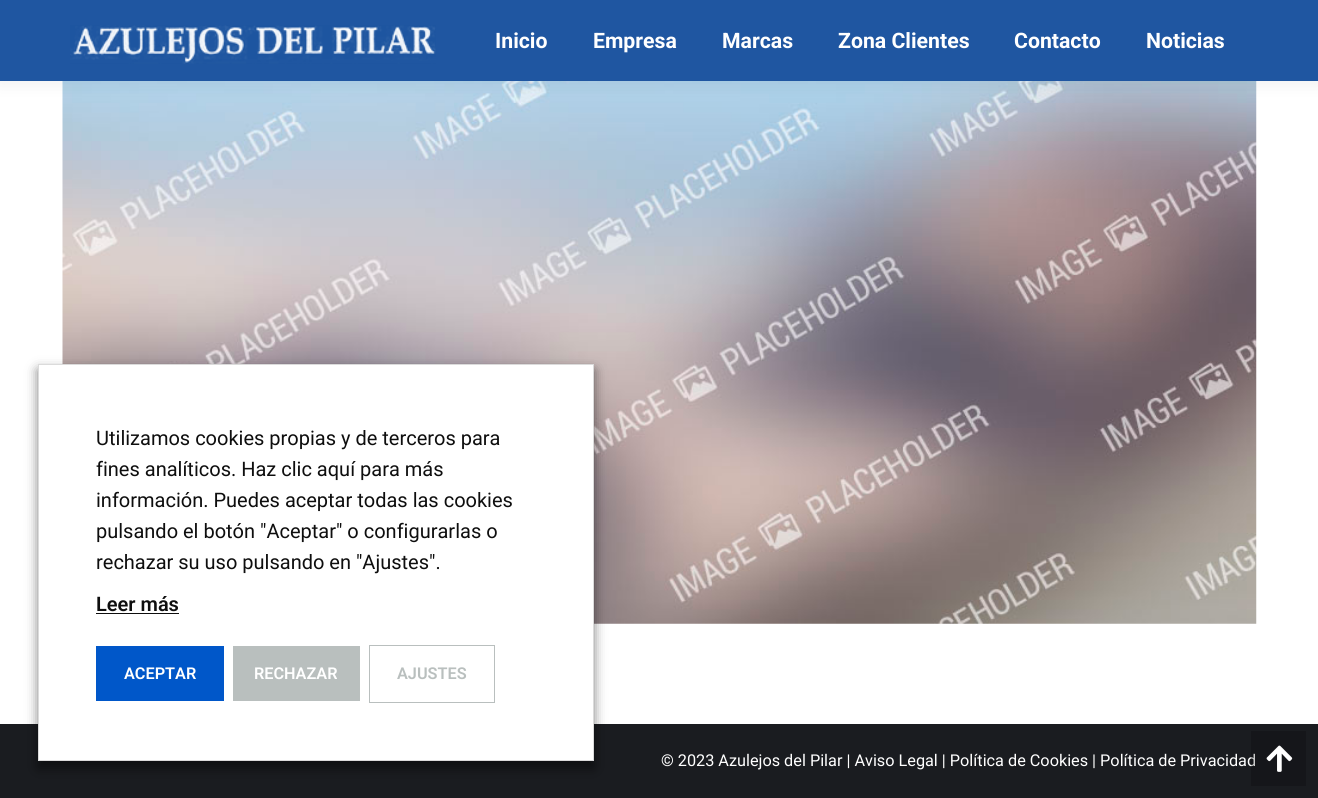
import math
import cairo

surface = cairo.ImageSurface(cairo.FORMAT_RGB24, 1318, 798)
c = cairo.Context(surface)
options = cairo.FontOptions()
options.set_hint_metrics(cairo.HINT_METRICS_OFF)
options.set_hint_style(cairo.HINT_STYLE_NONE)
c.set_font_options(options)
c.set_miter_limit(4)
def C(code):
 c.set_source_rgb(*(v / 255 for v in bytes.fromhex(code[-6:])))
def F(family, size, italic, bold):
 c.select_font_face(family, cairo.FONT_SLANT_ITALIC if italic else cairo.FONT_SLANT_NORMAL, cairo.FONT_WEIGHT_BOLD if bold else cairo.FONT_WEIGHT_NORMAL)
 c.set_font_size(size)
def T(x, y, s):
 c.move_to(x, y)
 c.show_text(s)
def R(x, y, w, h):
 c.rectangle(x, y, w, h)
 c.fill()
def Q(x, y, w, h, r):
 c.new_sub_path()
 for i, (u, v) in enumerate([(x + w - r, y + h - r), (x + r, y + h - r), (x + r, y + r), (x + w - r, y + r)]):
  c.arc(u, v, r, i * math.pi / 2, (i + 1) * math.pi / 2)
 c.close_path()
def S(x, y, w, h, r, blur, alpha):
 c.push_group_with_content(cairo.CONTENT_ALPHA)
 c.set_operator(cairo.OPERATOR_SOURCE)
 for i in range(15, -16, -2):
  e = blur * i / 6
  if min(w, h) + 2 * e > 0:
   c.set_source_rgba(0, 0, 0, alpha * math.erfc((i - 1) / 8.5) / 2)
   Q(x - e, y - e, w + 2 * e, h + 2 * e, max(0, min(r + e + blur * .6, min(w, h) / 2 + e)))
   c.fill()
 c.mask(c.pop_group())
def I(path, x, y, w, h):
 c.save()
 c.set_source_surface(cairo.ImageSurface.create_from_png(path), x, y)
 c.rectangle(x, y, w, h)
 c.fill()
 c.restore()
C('ffffff')
c.paint()
I('2.png',62,81,1195,543)
C('000000')
S(-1,-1,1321,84,0,9.5,.07)
C('1f56a1')
R(0,0,1318,81)
I('1.png',70,25,366,39)
F('Roboto',21.25,0,1)
C('ffffff')
T(495,48,'Inicio')
T(593,48,'Empresa')
T(722,48,'Marcas')
T(838,48,'Zona Clientes')
T(1014,48,'Contacto')
T(1146,48,'Noticias')
C('1a1c20')
R(0,724,1318,74)
C('000000')
S(38,370,556,398,0,6,.5)
C('ffffff')
c.rectangle(38.5,364.5,555,396)
c.fill_preserve()
C('dbdbdb')
c.set_line_width(1)
c.stroke()
F('Roboto',20,0,0)
C('0e0e0e')
T(96,445,'Utilizamos cookies propias y de terceros para')
T(96,476,'fines analíticos. Haz clic aquí para más')
T(96,507,'información. Puedes aceptar todas las cookies')
T(96,538,'pulsando el botón "Aceptar" o configurarlas o')
T(96,569,'rechazar su uso pulsando en "Ajustes".')
F('Roboto SemiBold',20,0,0)
T(96,611,'Leer más')
R(96,613,83,1)
C('0057c9')
R(96,646,128,55)
F('Roboto SemiBold',16.25,0,0)
C('ffffff')
T(124,679,'ACEPTAR')
C('b9bfbe')
R(233,646,127,55)
C('ffffff')
T(254,679,'RECHAZAR')
c.rectangle(369.5,645.5,125,57)
C('b9bfbe')
c.stroke()
T(397,679,'AJUSTES')
F('Roboto',16.25,0,0)
C('ffffff')
T(661,766,'© 2023 Azulejos del Pilar | Aviso Legal | Política de Cookies | Política de Privacidad')
c.set_source_rgba(0,0,0,0.2)
R(1251,731,55,55)
I('3.png',1266,745,27,27)
surface.write_to_png('o.png')
